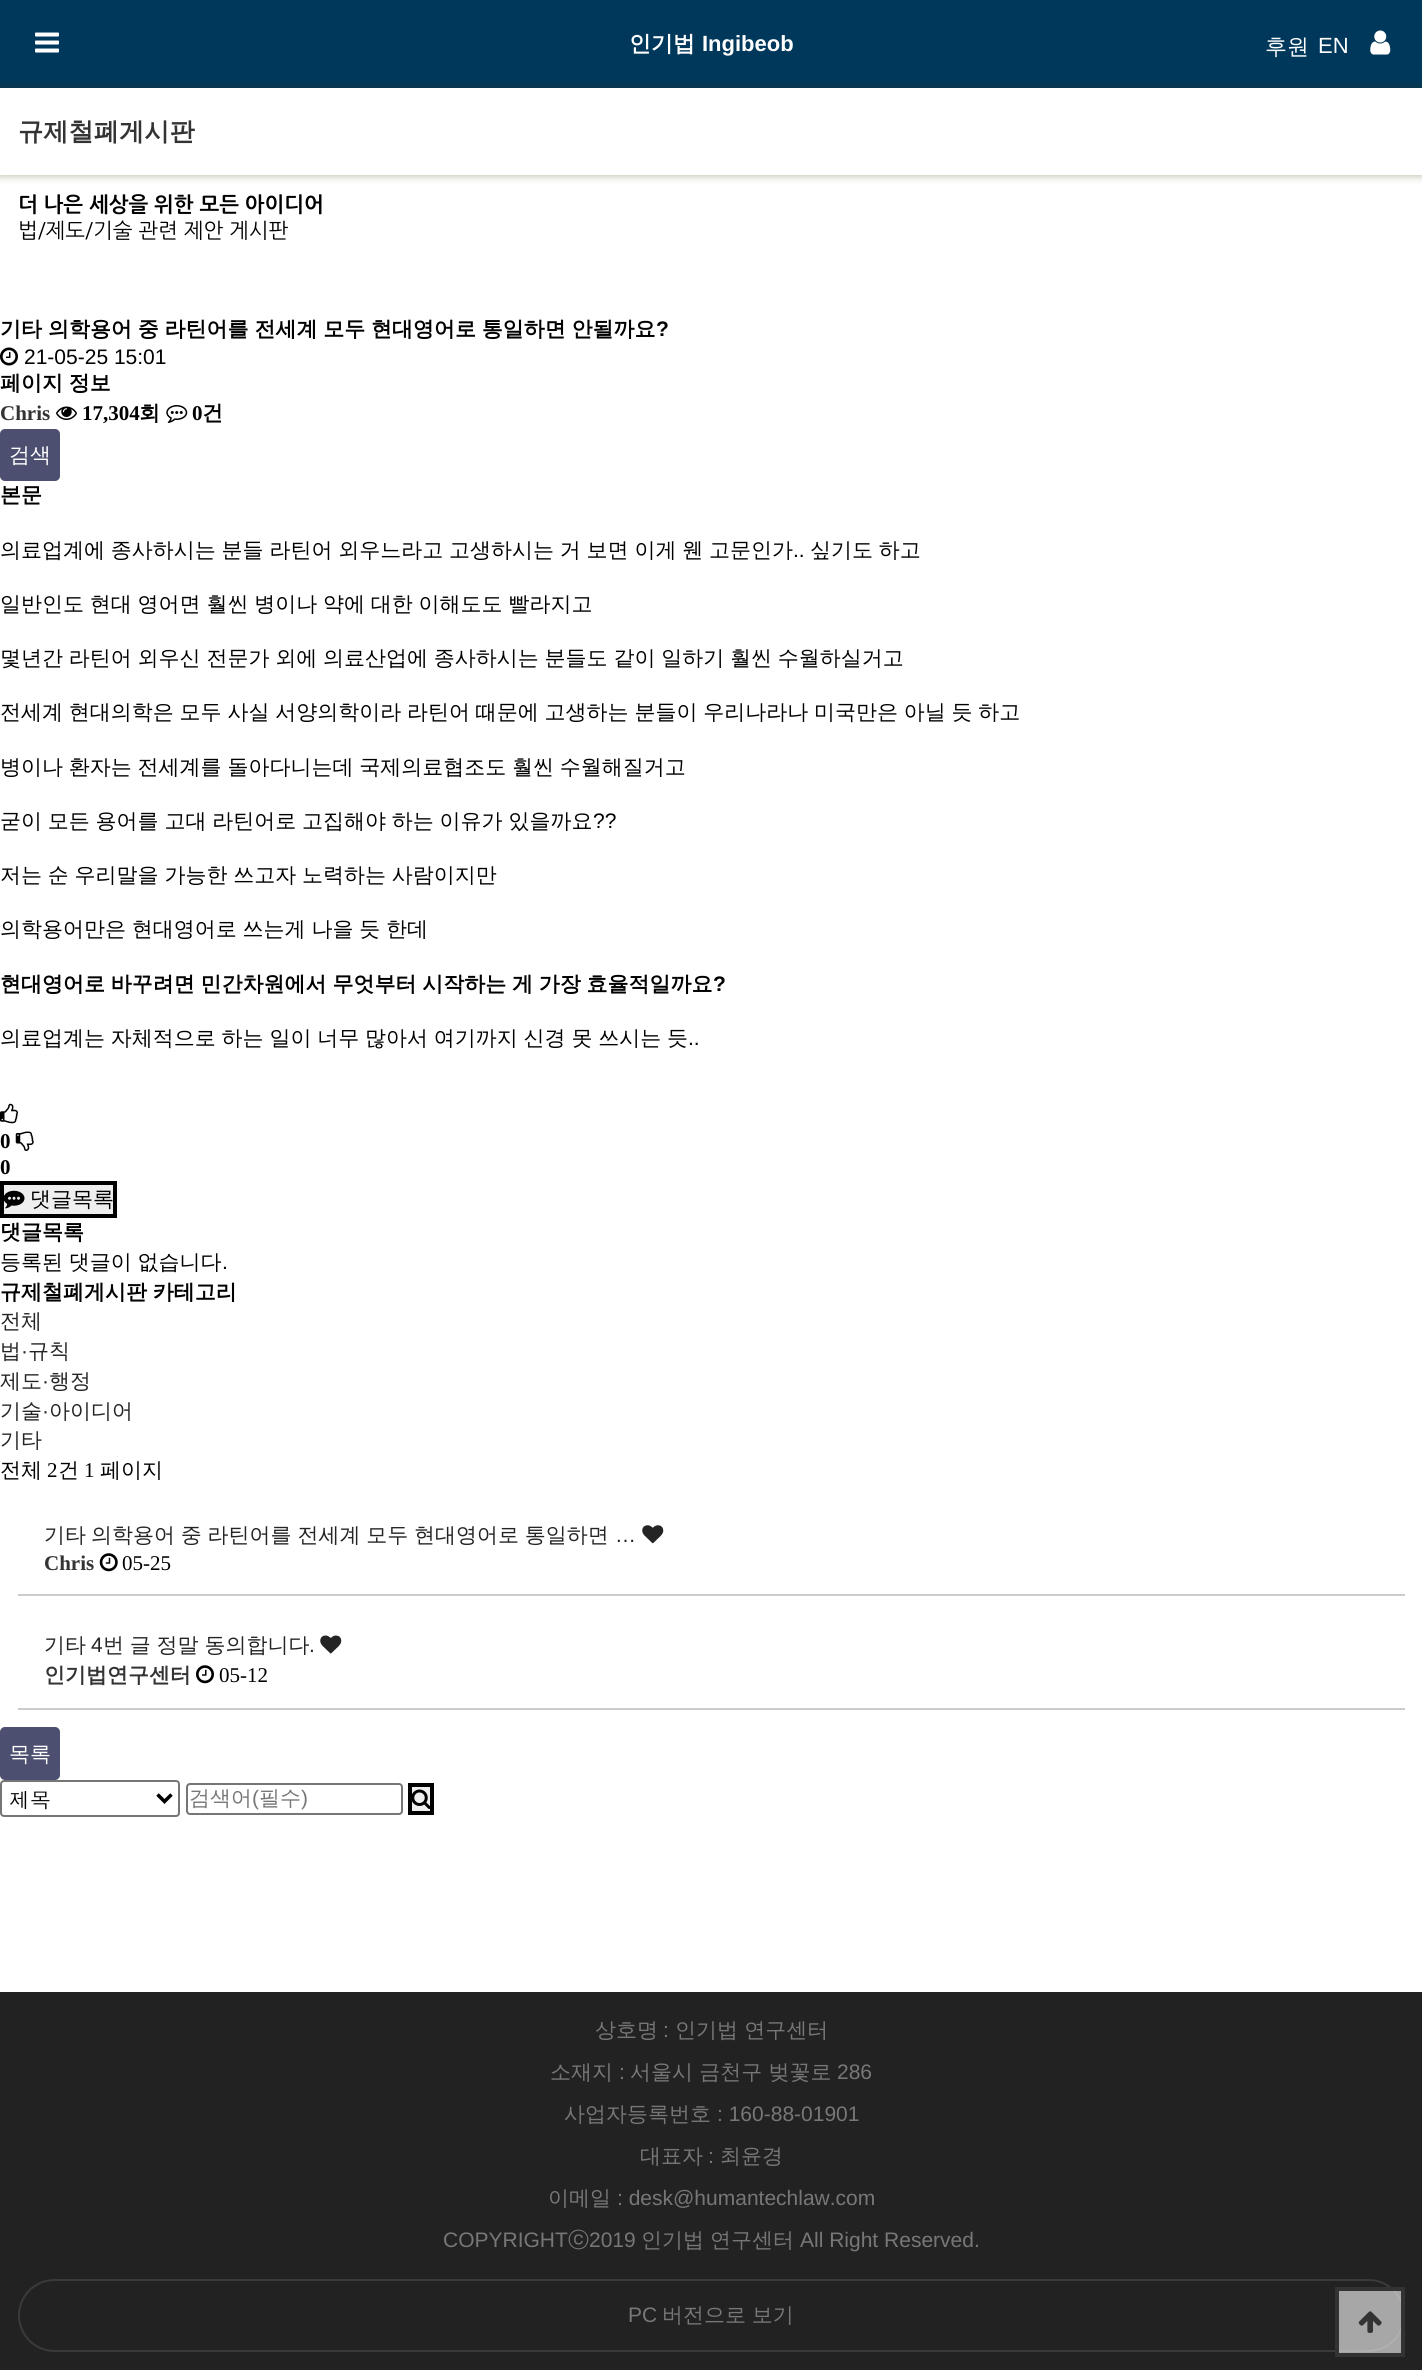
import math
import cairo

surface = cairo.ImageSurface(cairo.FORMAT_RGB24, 1422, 2374)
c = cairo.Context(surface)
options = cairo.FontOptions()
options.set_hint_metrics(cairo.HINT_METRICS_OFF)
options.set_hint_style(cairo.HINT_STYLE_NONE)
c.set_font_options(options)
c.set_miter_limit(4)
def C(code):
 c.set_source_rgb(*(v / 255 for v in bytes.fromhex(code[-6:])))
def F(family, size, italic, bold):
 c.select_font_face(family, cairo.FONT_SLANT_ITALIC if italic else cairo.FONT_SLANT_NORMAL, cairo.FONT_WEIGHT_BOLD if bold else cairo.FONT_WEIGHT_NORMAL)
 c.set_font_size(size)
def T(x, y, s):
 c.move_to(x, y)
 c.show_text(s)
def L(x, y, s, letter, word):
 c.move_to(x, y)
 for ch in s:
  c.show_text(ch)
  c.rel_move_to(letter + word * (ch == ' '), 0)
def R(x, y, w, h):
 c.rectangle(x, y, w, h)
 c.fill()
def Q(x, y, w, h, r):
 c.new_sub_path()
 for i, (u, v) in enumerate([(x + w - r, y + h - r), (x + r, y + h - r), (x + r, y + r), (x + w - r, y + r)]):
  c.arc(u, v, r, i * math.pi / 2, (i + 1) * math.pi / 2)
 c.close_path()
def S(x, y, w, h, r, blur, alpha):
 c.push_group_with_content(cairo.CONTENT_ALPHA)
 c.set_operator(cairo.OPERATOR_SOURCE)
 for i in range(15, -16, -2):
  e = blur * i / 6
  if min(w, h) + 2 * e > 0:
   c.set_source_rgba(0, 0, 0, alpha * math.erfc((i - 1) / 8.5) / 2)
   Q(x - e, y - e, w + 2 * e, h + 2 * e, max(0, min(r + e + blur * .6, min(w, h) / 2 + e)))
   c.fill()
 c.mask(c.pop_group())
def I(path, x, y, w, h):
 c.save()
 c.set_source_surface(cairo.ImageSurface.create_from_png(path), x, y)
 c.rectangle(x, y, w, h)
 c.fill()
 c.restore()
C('ffffff')
c.paint()
C('00385c')
R(0,0,1422,88)
I('1.png',35,32,24,21)
F('WenQuanYi Zen Hei',22,0,1)
C('ffffff')
T(629,51,'인기법')
F('Liberation Sans',22,0,1)
T(702,51,'Ingibeob')
F('WenQuanYi Zen Hei Medium',22,0,0)
T(1265,54,'후원')
F('Liberation Sans',22,0,0)
T(1318,53,'EN')
I('2.png',1370,30,21,25)
c.save()
c.set_fill_rule(cairo.FILL_RULE_EVEN_ODD)
c.new_path()
c.move_to(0,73)
c.line_to(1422,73)
c.line_to(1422,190)
c.line_to(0,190)
c.close_path()
c.move_to(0,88)
c.line_to(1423,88)
c.line_to(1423,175)
c.line_to(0,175)
c.close_path()
c.clip()
C('373705')
S(0,88,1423,87,0,4.5,.4)
c.restore()
F('WenQuanYi Zen Hei',25.25,0,1)
C('333333')
T(18,140,'규제철폐게시판')
F('NanumGothic',21,0,1)
C('000000')
T(18,212,'더 나은 세상을 위한 모든 아이디어')
F('NanumGothic',21,0,0)
T(18,238,'법/제도/기술 관련 제안 게시판')
F('WenQuanYi Zen Hei',21,0,1)
T(0,336,'기타')
L(48,336,'의학용어 중 라틴어를 전세계 모두 현대영어로 통일하면 안될까요',0,-.5)
F('Liberation Sans',21,0,1)
T(656,336,'?')
I('3.png',0,347,18,19)
F('Liberation Sans',21,0,0)
T(24,364,'21-05-25 15:01')
F('WenQuanYi Zen Hei',21,0,1)
L(0,390,'페이지 정보',0,-.5)
F('Liberation Serif',21,0,1)
C('333333')
T(0,420,'Chris')
I('4.png',56,406,21,14)
C('000000')
T(82,420,'17,304')
F('WenQuanYi Zen Hei',21,0,1)
T(139,420,'회')
I('5.png',166,405,22,18)
F('Liberation Serif',21,0,1)
T(192,420,'0')
F('WenQuanYi Zen Hei',21,0,1)
T(202,420,'건')
C('4c4f6f')
Q(0,429,60,52,5)
c.fill()
F('WenQuanYi Zen Hei Medium',21,0,0)
C('ffffff')
T(9,462,'검색')
F('WenQuanYi Zen Hei',21,0,1)
C('000000')
T(0,502,'본문')
F('WenQuanYi Zen Hei Medium',21,0,0)
L(0,557,'의료업계에 종사하시는 분들 라틴어 외우느라고 고생하시는 거 보면 이게 웬 고문인가',0,-.5)
F('Liberation Sans',21,0,0)
T(793,557,'..')
F('WenQuanYi Zen Hei Medium',21,0,0)
L(810,557,'싶기도 하고',0,-.5)
L(0,611,'일반인도 현대 영어면 훨씬 병이나 약에 대한 이해도도 빨라지고',0,-.5)
L(0,665,'몇년간 라틴어 외우신 전문가 외에 의료산업에 종사하시는 분들도 같이 일하기 훨씬 수월하실거고',0,-.5)
L(0,719,'전세계 현대의학은 모두 사실 서양의학이라 라틴어 때문에 고생하는 분들이 우리나라나 미국만은 아닐 듯 하고',0,-.5)
L(0,774,'병이나 환자는 전세계를 돌아다니는데 국제의료협조도 훨씬 수월해질거고',0,-.5)
L(0,828,'굳이 모든 용어를 고대 라틴어로 고집해야 하는 이유가 있을까요',0,-.5)
F('Liberation Sans',21,0,0)
T(593,828,'??')
F('WenQuanYi Zen Hei Medium',21,0,0)
L(0,882,'저는 순 우리말을 가능한 쓰고자 노력하는 사람이지만',0,-.5)
L(0,936,'의학용어만은 현대영어로 쓰는게 나을 듯 한데',0,-.5)
F('WenQuanYi Zen Hei',21,0,1)
L(0,991,'현대영어로 바꾸려면 민간차원에서 무엇부터 시작하는 게 가장 효율적일까요',0,-.5)
F('Liberation Sans',21,0,1)
T(713,991,'?')
F('WenQuanYi Zen Hei Medium',21,0,0)
L(0,1045,'의료업계는 자체적으로 하는 일이 너무 많아서 여기까지 신경 못 쓰시는 듯',0,-.5)
F('Liberation Sans',21,0,0)
T(688,1045,'..')
I('6.png',0,1103,18,21)
F('Liberation Serif',21,0,1)
T(0,1148,'0')
I('7.png',15,1131,19,20)
T(0,1174,'0')
C('efefef')
c.rectangle(2,1183,113,33)
c.fill_preserve()
C('000000')
c.set_line_width(4)
c.stroke()
I('8.png',4,1190,21,19)
F('WenQuanYi Zen Hei Medium',21,0,0)
T(30,1206,'댓글목록')
F('WenQuanYi Zen Hei',21,0,1)
T(0,1239,'댓글목록')
F('WenQuanYi Zen Hei Medium',21,0,0)
L(0,1269,'등록된 댓글이 없습니다',0,-.5)
F('Liberation Sans',21,0,0)
T(222,1269,'.')
F('WenQuanYi Zen Hei',21,0,1)
L(0,1299,'규제철폐게시판 카테고리',0,-.5)
F('WenQuanYi Zen Hei Medium',21,0,0)
C('242424')
T(0,1328,'전체')
T(0,1358,'법')
F('Liberation Sans',21,0,0)
T(21,1358,'·')
F('WenQuanYi Zen Hei Medium',21,0,0)
T(28,1358,'규칙')
T(0,1388,'제도')
F('Liberation Sans',21,0,0)
T(42,1388,'·')
F('WenQuanYi Zen Hei Medium',21,0,0)
T(49,1388,'행정')
T(0,1418,'기술')
F('Liberation Sans',21,0,0)
T(42,1418,'·')
F('WenQuanYi Zen Hei Medium',21,0,0)
T(49,1418,'아이디어')
T(0,1447,'기타')
C('000000')
T(0,1477,'전체')
F('Liberation Serif',21,0,0)
T(47,1477,'2')
F('WenQuanYi Zen Hei Medium',21,0,0)
T(58,1477,'건')
F('Liberation Serif',21,0,0)
T(84,1477,'1')
F('WenQuanYi Zen Hei Medium',21,0,0)
T(100,1477,'페이지')
C('cccccc')
R(18,1594,1387,2)
C('242424')
T(44,1542,'기타')
L(91,1542,'의학용어 중 라틴어를 전세계 모두 현대영어로 통일하면',0,-.5)
F('Liberation Sans',21,0,0)
T(615,1542,'…')
I('9.png',642,1525,22,19)
F('Liberation Serif',21,0,1)
C('333333')
T(44,1570,'Chris')
I('10.png',99,1553,19,19)
F('Liberation Serif',21,0,0)
C('000000')
T(122,1570,'05-25')
C('cccccc')
R(18,1708,1387,2)
F('WenQuanYi Zen Hei Medium',21,0,0)
C('242424')
T(44,1652,'기타')
F('Liberation Sans',21,0,0)
T(91,1652,'4')
F('WenQuanYi Zen Hei Medium',21,0,0)
L(103,1652,'번 글 정말 동의합니다',0,-.5)
F('Liberation Sans',21,0,0)
T(309,1652,'.')
I('11.png',320,1635,22,19)
F('WenQuanYi Zen Hei',21,0,1)
C('333333')
T(44,1682,'인기법연구센터')
I('12.png',196,1665,18,19)
F('Liberation Serif',21,0,0)
C('000000')
T(219,1682,'05-12')
C('4c4f6f')
Q(0,1727,60,53,5)
c.fill()
F('WenQuanYi Zen Hei Medium',21,0,0)
C('ffffff')
T(9,1761,'목록')
Q(1,1781,178,35,3)
C('767676')
c.set_line_width(2)
c.stroke()
c.new_path()
c.move_to(157.5,1794.5)
c.line_to(164.5,1801.5)
c.line_to(171.5,1794.5)
C('000000')
c.set_line_width(3.5)
c.stroke()
F('Dotum',21,0,0)
T(9,1808,'제목')
Q(187,1784,215,30,3)
C('767676')
c.set_line_width(2)
c.stroke()
F('WenQuanYi Zen Hei Medium',21,0,0)
C('777777')
T(189,1805,'검색어')
F('Liberation Sans',21,0,0)
T(252,1805,'(')
F('WenQuanYi Zen Hei Medium',21,0,0)
T(259,1805,'필수')
F('Liberation Sans',21,0,0)
T(301,1805,')')
C('efefef')
c.rectangle(410,1785,22,28)
c.fill_preserve()
C('000000')
c.set_line_width(4)
c.stroke()
I('13.png',412,1789,18,20)
C('222222')
R(0,1992,1422,378)
F('WenQuanYi Zen Hei Medium',21,0,0)
C('777777')
T(595,2037,'상호명')
F('Liberation Sans',21,0,0)
T(663,2037,':')
F('WenQuanYi Zen Hei Medium',21,0,0)
T(675,2037,'인기법 연구센터')
T(550,2079,'소재지')
F('Liberation Sans',21,0,0)
T(619,2079,':')
F('WenQuanYi Zen Hei Medium',21,0,0)
T(630,2079,'서울시 금천구 벚꽃로')
F('Liberation Sans',21,0,0)
T(837,2079,'286')
F('WenQuanYi Zen Hei Medium',21,0,0)
T(564,2121,'사업자등록번호')
F('Liberation Sans',21,0,0)
T(717,2121,': 160-88-01901')
F('WenQuanYi Zen Hei Medium',21,0,0)
T(640,2163,'대표자')
F('Liberation Sans',21,0,0)
T(708,2163,':')
F('WenQuanYi Zen Hei Medium',21,0,0)
T(720,2163,'최윤경')
T(548,2205,'이메일')
F('Liberation Sans',21,0,0)
T(617,2205,': desk@humantechlaw.com')
T(443,2247,'COPYRIGHT')
F('WenQuanYi Zen Hei Medium',21,0,0)
T(568,2247,'ⓒ')
F('Liberation Sans',21,0,0)
T(589,2247,'2019')
F('WenQuanYi Zen Hei Medium',21,0,0)
T(641,2247,'인기법')
T(710,2247,'연구센터')
F('Liberation Sans',21,0,0)
T(800,2247,'All Right Reserved.')
Q(19,2280,1385,71,35.5)
C('3a3a3a')
c.set_line_width(2)
c.stroke()
C('777777')
T(628,2322,'PC')
F('WenQuanYi Zen Hei Medium',21,0,0)
L(662,2322,'버전으로 보기',0,-.5)
c.set_source_rgba(1,1,1,0.6)
c.rectangle(1337,2289,66,66)
c.fill_preserve()
C('333333')
c.set_line_width(4)
c.stroke()
I('14.png',1358,2311,24,22)
surface.write_to_png('o.png')
